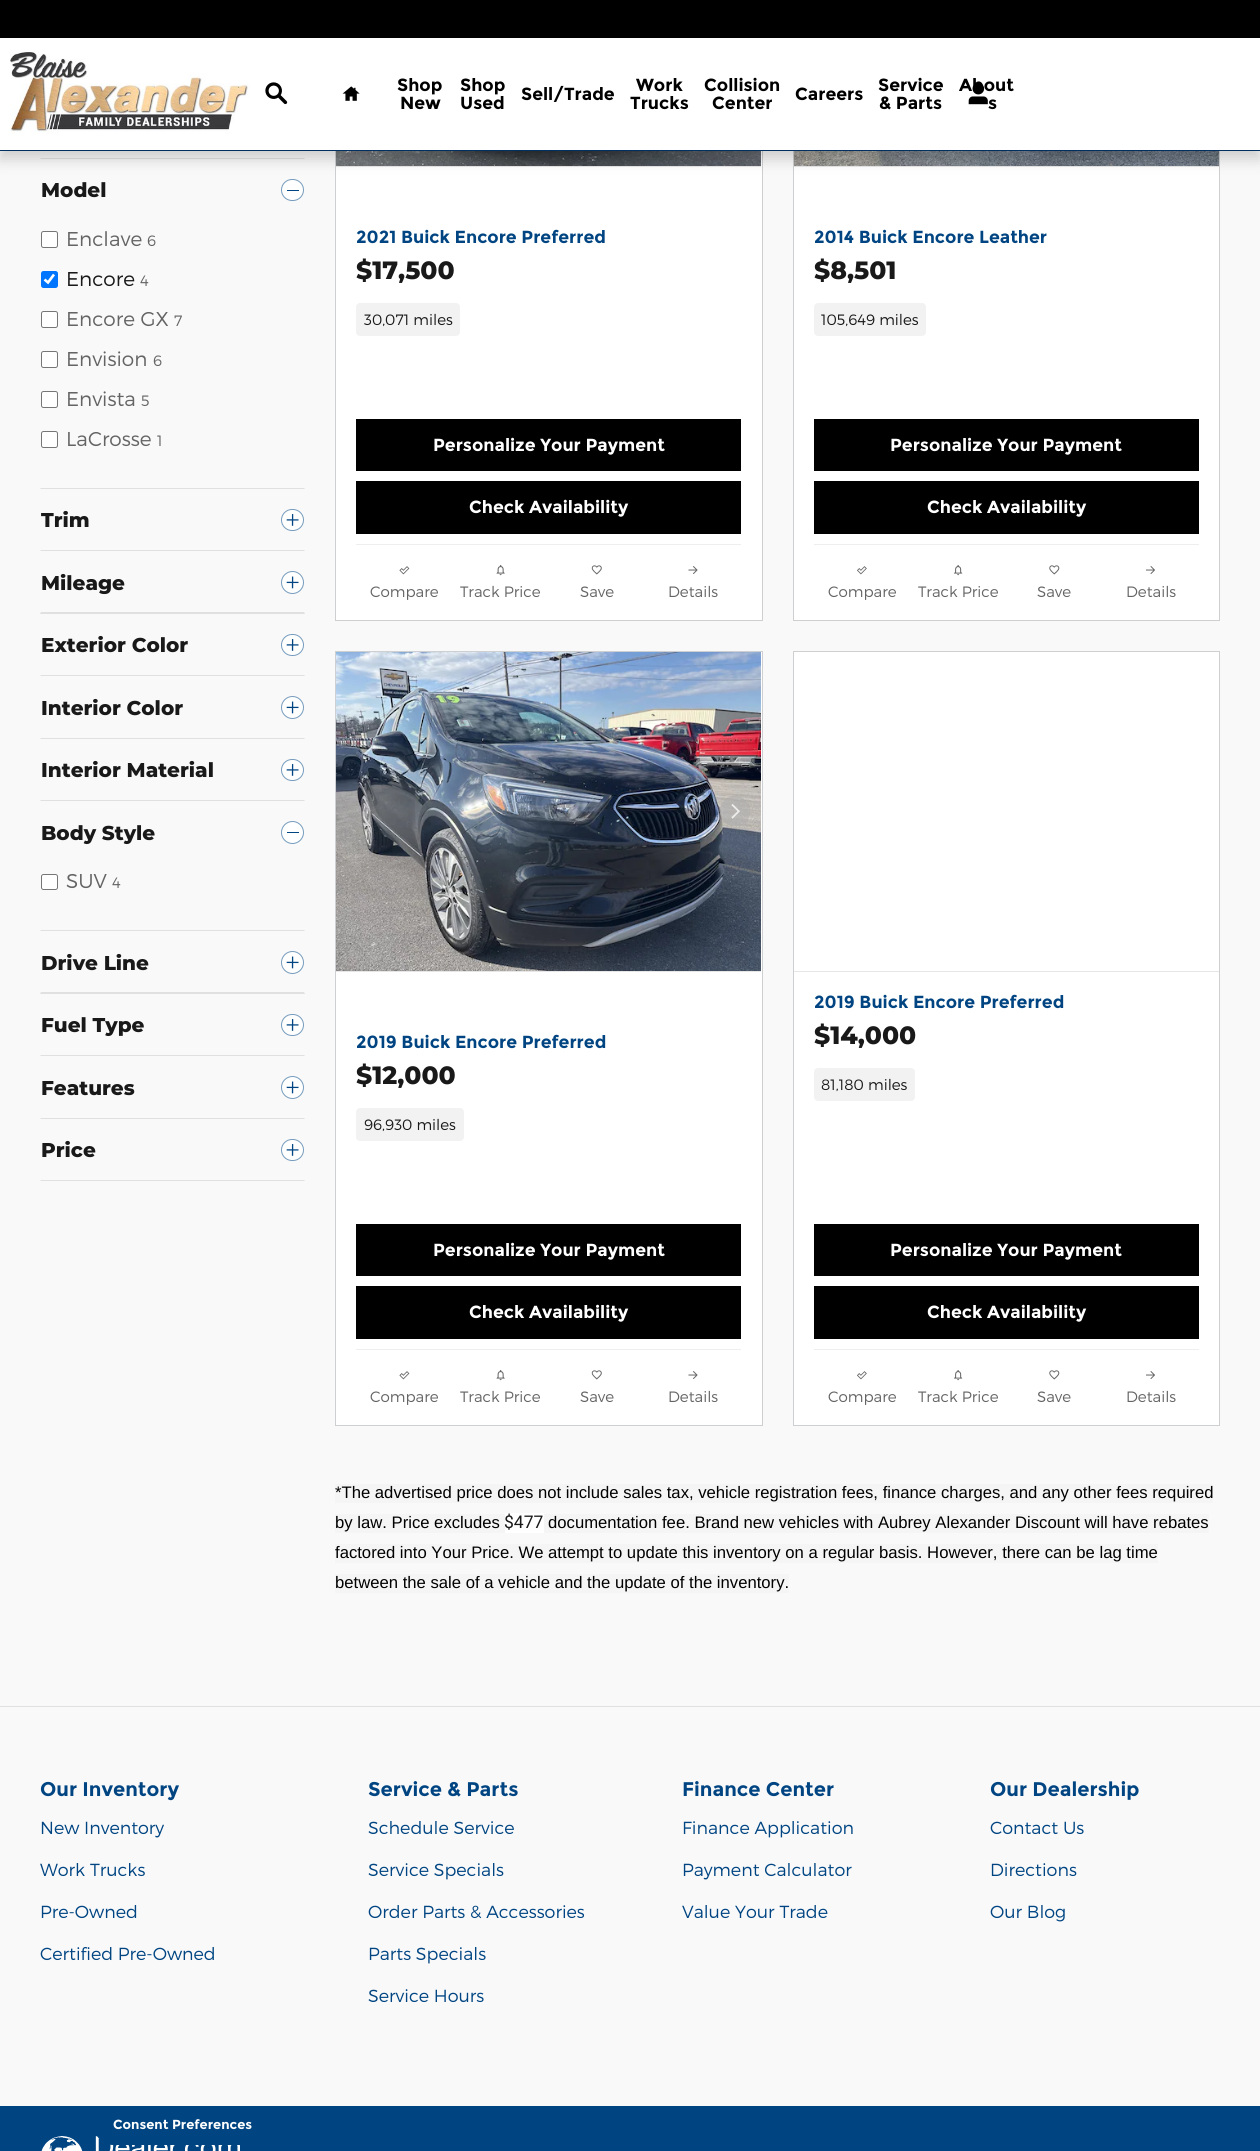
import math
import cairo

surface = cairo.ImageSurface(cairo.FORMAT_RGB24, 1260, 2151)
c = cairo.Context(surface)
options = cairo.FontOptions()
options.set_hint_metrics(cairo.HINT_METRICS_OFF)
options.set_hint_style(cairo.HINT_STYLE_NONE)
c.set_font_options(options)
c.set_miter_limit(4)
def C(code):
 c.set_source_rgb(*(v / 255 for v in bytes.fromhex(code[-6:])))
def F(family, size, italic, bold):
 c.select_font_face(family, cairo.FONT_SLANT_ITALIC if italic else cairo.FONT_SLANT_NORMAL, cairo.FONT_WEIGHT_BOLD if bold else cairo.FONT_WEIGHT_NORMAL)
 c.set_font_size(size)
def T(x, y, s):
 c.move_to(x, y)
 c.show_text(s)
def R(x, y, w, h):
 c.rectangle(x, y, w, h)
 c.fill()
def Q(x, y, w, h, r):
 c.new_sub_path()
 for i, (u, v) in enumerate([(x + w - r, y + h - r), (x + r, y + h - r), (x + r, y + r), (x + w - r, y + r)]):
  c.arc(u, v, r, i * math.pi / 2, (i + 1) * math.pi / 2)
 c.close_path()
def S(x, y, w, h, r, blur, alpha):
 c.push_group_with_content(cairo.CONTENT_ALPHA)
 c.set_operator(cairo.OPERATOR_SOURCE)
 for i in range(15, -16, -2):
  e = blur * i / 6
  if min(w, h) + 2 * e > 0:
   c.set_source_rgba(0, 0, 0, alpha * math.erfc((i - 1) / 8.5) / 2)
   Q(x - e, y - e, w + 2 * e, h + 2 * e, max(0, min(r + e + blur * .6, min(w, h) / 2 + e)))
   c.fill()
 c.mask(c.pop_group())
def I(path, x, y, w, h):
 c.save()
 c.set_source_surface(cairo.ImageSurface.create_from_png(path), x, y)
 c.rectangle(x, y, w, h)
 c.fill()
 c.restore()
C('f9f9fa')
c.paint()
C('e0e0e1')
c.new_path()
c.move_to(305,159)
c.line_to(40,159)
c.line_to(41,158)
c.line_to(304,158)
c.close_path()
c.fill()
C('ffffff')
Q(281.5,179.5,22,21,10.5)
c.fill_preserve()
C('759bbc')
c.set_line_width(1)
c.stroke()
C('ffffff')
R(336,151,426,469)
c.rectangle(335.5,-.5,427,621)
C('cecfd1')
c.stroke()
C('e6e6e6')
R(336,166,425,1)
I('7.png',336,151,425,15)
C('ffffff')
R(794,167,425,453)
c.rectangle(793.5,-.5,426,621)
C('cecfd1')
c.stroke()
C('e6e6e6')
R(794,166,425,1)
I('12.png',794,151,425,15)
C('000000')
S(0,8,1260,151,0,7.5,.18)
C('ffffff')
R(0,38,1260,112)
C('002f60')
R(0,150,1260,1)
C('000000')
R(0,0,1260,38)
I('1.png',10,52,240,82)
I('2.png',265,82,23,23)
I('3.png',342,86,18,15)
F('Montserrat',17.5,0,1)
T(397,91,'Shop')
T(400,109,'New')
T(460,91,'Shop')
T(460,109,'Used')
T(521,100,'Sell/Trade')
T(636,91,'Work')
T(630,109,'Trucks')
T(704,91,'Collision')
T(712,109,'Center')
T(795,100,'Careers')
T(878,91,'Service')
T(879,109,'& Parts')
T(959,91,'About')
T(988,109,'s')
I('4.png',968,83,20,22)
C('e0e0e1')
c.new_path()
c.move_to(305,489)
c.line_to(40,489)
c.line_to(41,488)
c.line_to(304,488)
c.close_path()
c.fill()
F('Montserrat ExtraBold',20,0,0)
C('191919')
T(41,197,'Model')
C('004582')
R(287,190,12,1)
C('ffffff')
Q(41.5,231.5,16,16,2)
c.fill_preserve()
C('767676')
c.stroke()
F('Montserrat Light',20,0,0)
C('646464')
T(66,246,'Enclave')
F('Montserrat Light',15,0,0)
T(147,246,'6')
C('0075ff')
Q(41,271,17,17,2.5)
c.fill()
c.new_path()
c.move_to(44.5,279.5)
c.line_to(48,282.5)
c.line_to(54,274.5)
C('ffffff')
c.set_line_width(2.6)
c.stroke()
F('Montserrat Light',20,0,0)
C('191919')
T(66,286,'Encore')
F('Montserrat Light',15,0,0)
C('646464')
T(140,286,'4')
C('ffffff')
Q(41.5,311.5,16,16,2)
c.fill_preserve()
C('767676')
c.set_line_width(1)
c.stroke()
F('Montserrat Light',20,0,0)
C('646464')
T(66,326,'Encore GX')
F('Montserrat Light',15,0,0)
T(174,326,'7')
C('ffffff')
Q(41.5,351.5,16,16,2)
c.fill_preserve()
C('767676')
c.stroke()
F('Montserrat Light',20,0,0)
C('646464')
T(66,366,'Envision')
F('Montserrat Light',15,0,0)
T(153,366,'6')
C('ffffff')
Q(41.5,391.5,16,16,2)
c.fill_preserve()
C('767676')
c.stroke()
F('Montserrat Light',20,0,0)
C('646464')
T(66,406,'Envista')
F('Montserrat Light',15,0,0)
T(141,406,'5')
C('ffffff')
Q(41.5,431.5,16,16,2)
c.fill_preserve()
C('767676')
c.stroke()
F('Montserrat Light',20,0,0)
C('646464')
T(66,446,'LaCrosse')
F('Montserrat Light',15,0,0)
T(157,446,'1')
C('e0e0e1')
c.new_path()
c.move_to(305,551)
c.line_to(40,551)
c.line_to(41,550)
c.line_to(304,550)
c.close_path()
c.fill()
F('Montserrat ExtraBold',20,0,0)
C('191919')
T(41,527,'Trim')
C('ffffff')
Q(281.5,509.5,22,21,10.5)
c.fill_preserve()
C('759bbc')
c.stroke()
I('5.png',286,514,13,12)
C('e0e0e1')
c.new_path()
c.move_to(305,614)
c.line_to(40,614)
c.line_to(41,612)
c.line_to(304,612)
c.close_path()
c.fill()
C('191919')
T(41,590,'Mileage')
C('ffffff')
c.new_path()
c.arc(292.5,582.5,11,0,2 * math.pi)
c.fill_preserve()
C('759bbc')
c.stroke()
I('6.png',286,576,13,13)
C('e0e0e1')
c.new_path()
c.move_to(305,676)
c.line_to(40,676)
c.line_to(41,675)
c.line_to(304,675)
c.close_path()
c.fill()
C('191919')
T(41,652,'Exterior Color')
C('ffffff')
Q(281.5,634.5,22,21,10.5)
c.fill_preserve()
C('759bbc')
c.stroke()
I('5.png',286,639,13,12)
C('e0e0e1')
c.new_path()
c.move_to(305,739)
c.line_to(40,739)
c.line_to(41,738)
c.line_to(304,738)
c.close_path()
c.fill()
C('191919')
T(41,715,'Interior Color')
C('ffffff')
c.new_path()
c.arc(292.5,707.5,11,0,2 * math.pi)
c.fill_preserve()
C('759bbc')
c.stroke()
I('6.png',286,701,13,13)
C('e0e0e1')
c.new_path()
c.move_to(305,801)
c.line_to(40,801)
c.line_to(41,800)
c.line_to(304,800)
c.close_path()
c.fill()
C('191919')
T(41,777,'Interior Material')
C('ffffff')
Q(281.5,759.5,22,21,10.5)
c.fill_preserve()
C('759bbc')
c.stroke()
I('5.png',286,764,13,12)
C('e0e0e1')
c.new_path()
c.move_to(305,931)
c.line_to(40,931)
c.line_to(41,930)
c.line_to(304,930)
c.close_path()
c.fill()
C('191919')
T(41,840,'Body Style')
C('ffffff')
c.new_path()
c.arc(292.5,832.5,11,0,2 * math.pi)
c.fill_preserve()
C('759bbc')
c.stroke()
C('004582')
R(287,832,12,1)
C('ffffff')
Q(41.5,874.5,16,15,2)
c.fill_preserve()
C('767676')
c.stroke()
F('Montserrat Light',20,0,0)
C('646464')
T(66,888,'SUV')
F('Montserrat Light',15,0,0)
T(112,888,'4')
C('e0e0e1')
c.new_path()
c.move_to(305,994)
c.line_to(40,994)
c.line_to(41,992)
c.line_to(304,992)
c.close_path()
c.fill()
F('Montserrat ExtraBold',20,0,0)
C('191919')
T(41,970,'Drive Line')
C('ffffff')
c.new_path()
c.arc(292.5,962.5,11,0,2 * math.pi)
c.fill_preserve()
C('759bbc')
c.stroke()
I('6.png',286,956,13,13)
C('e0e0e1')
c.new_path()
c.move_to(305,1056)
c.line_to(40,1056)
c.line_to(41,1055)
c.line_to(304,1055)
c.close_path()
c.fill()
C('191919')
T(41,1032,'Fuel Type')
C('ffffff')
Q(281.5,1014.5,22,21,10.5)
c.fill_preserve()
C('759bbc')
c.stroke()
I('5.png',286,1019,13,12)
C('e0e0e1')
c.new_path()
c.move_to(305,1119)
c.line_to(40,1119)
c.line_to(41,1118)
c.line_to(304,1118)
c.close_path()
c.fill()
C('191919')
T(41,1095,'Features')
C('ffffff')
c.new_path()
c.arc(292.5,1087.5,11,0,2 * math.pi)
c.fill_preserve()
C('759bbc')
c.stroke()
I('6.png',286,1081,13,13)
C('e0e0e1')
c.new_path()
c.move_to(305,1181)
c.line_to(40,1181)
c.line_to(41,1180)
c.line_to(304,1180)
c.close_path()
c.fill()
C('191919')
T(41,1157,'Price')
C('ffffff')
Q(281.5,1139.5,22,21,10.5)
c.fill_preserve()
C('759bbc')
c.stroke()
I('5.png',286,1144,13,12)
F('Montserrat',17.5,0,1)
C('004582')
T(356,243,'2021 Buick Encore Preferred')
F('Montserrat ExtraBold',25,0,0)
C('191919')
T(356,279,'$17,500')
C('f2f2f2')
Q(356,303,104,33,4)
c.fill()
F('Montserrat Light',15,0,0)
C('191919')
T(364,325,'30,071 miles')
C('000000')
R(356,419,385,52)
F('Montserrat',17.5,0,1)
C('ffffff')
T(433,451,'Personalize Your Payment')
C('000000')
R(356,481,385,53)
C('ffffff')
T(469,513,'Check Availability')
C('eeeeee')
R(356,544,385,1)
I('8.png',399,566,11,9)
F('Montserrat Light',15,0,0)
C('646464')
T(370,597,'Compare')
I('9.png',496,565,9,11)
T(460,597,'Track Price')
I('10.png',591,565,11,10)
T(580,597,'Save')
I('11.png',688,566,10,8)
T(668,597,'Details')
F('Montserrat',17.5,0,1)
C('004582')
T(814,243,'2014 Buick Encore Leather')
F('Montserrat ExtraBold',25,0,0)
C('191919')
T(814,279,'$8,501')
C('f2f2f2')
Q(814,303,112,33,4)
c.fill()
F('Montserrat Light',15,0,0)
C('191919')
T(821,325,'105,649 miles')
C('000000')
R(814,419,385,52)
F('Montserrat',17.5,0,1)
C('ffffff')
T(890,451,'Personalize Your Payment')
C('000000')
R(814,481,385,53)
C('ffffff')
T(927,513,'Check Availability')
C('eeeeee')
R(814,544,385,1)
I('13.png',857,566,10,9)
F('Montserrat Light',15,0,0)
C('646464')
T(828,597,'Compare')
I('14.png',954,565,9,11)
T(918,597,'Track Price')
I('15.png',1049,565,11,10)
T(1037,597,'Save')
I('16.png',1146,566,9,8)
T(1126,597,'Details')
C('ffffff')
c.rectangle(335.5,651.5,427,774)
c.fill_preserve()
C('cecfd1')
c.stroke()
C('e6e6e6')
R(336,971,425,1)
I('17.png',336,652,425,319)
I('18.png',720,796,30,30)
F('Montserrat',17.5,0,1)
C('004582')
T(356,1048,'2019 Buick Encore Preferred')
F('Montserrat ExtraBold',25,0,0)
C('191919')
T(356,1084,'$12,000')
C('f2f2f2')
Q(356,1108,108,33,4)
c.fill()
F('Montserrat Light',15,0,0)
C('191919')
T(364,1130,'96,930 miles')
C('000000')
R(356,1224,385,52)
F('Montserrat',17.5,0,1)
C('ffffff')
T(433,1256,'Personalize Your Payment')
C('000000')
R(356,1286,385,53)
C('ffffff')
T(469,1318,'Check Availability')
C('eeeeee')
R(356,1349,385,1)
I('8.png',399,1371,11,9)
F('Montserrat Light',15,0,0)
C('646464')
T(370,1402,'Compare')
I('9.png',496,1370,9,11)
T(460,1402,'Track Price')
I('10.png',591,1370,11,10)
T(580,1402,'Save')
I('11.png',688,1371,10,8)
T(668,1402,'Details')
C('ffffff')
c.rectangle(793.5,651.5,426,774)
c.fill_preserve()
C('cecfd1')
c.stroke()
C('e6e6e6')
R(794,971,425,1)
F('Montserrat',17.5,0,1)
C('004582')
T(814,1008,'2019 Buick Encore Preferred')
F('Montserrat ExtraBold',25,0,0)
C('191919')
T(814,1044,'$14,000')
C('f2f2f2')
Q(814,1068,101,33,4)
c.fill()
F('Montserrat Light',15,0,0)
C('191919')
T(821,1090,'81,180 miles')
C('000000')
R(814,1224,385,52)
F('Montserrat',17.5,0,1)
C('ffffff')
T(890,1256,'Personalize Your Payment')
C('000000')
R(814,1286,385,53)
C('ffffff')
T(927,1318,'Check Availability')
C('eeeeee')
R(814,1349,385,1)
I('13.png',857,1371,10,9)
F('Montserrat Light',15,0,0)
C('646464')
T(828,1402,'Compare')
I('14.png',954,1370,9,11)
T(918,1402,'Track Price')
I('15.png',1049,1370,11,10)
T(1037,1402,'Save')
I('16.png',1146,1371,9,8)
T(1126,1402,'Details')
C('f5f5f5')
R(335,1484,878,19)
F('Liberation Sans',16.67,0,0)
C('000000')
T(335,1498,'*The advertised price does not include sales tax, vehicle registration fees, finance charges, and any other fees required')
C('f5f5f5')
R(335,1514,170,19)
C('000000')
T(335,1528,'by law. Price excludes')
C('ffffff')
R(505,1513,39,20)
F('Roboto',17.5,0,0)
C('191919')
T(504,1528,'$477')
C('f5f5f5')
R(544,1514,665,19)
F('Liberation Sans',16.67,0,0)
C('000000')
T(548,1528,'documentation fee. Brand new vehicles with Aubrey Alexander Discount will have rebates')
C('f5f5f5')
R(335,1544,823,19)
C('000000')
T(335,1558,'factored into Your Price. We attempt to update this inventory on a regular basis. However, there can be lag time')
C('f5f5f5')
R(335,1574,454,19)
C('000000')
T(335,1588,'between the sale of a vehicle and the update of the inventory.')
C('e0e0e1')
R(0,1706,1260,1)
F('Montserrat',19.75,0,1)
C('004582')
T(40,1796,'Our Inventory')
F('Montserrat Light',17.5,0,0)
T(40,1834,'New Inventory')
T(40,1876,'Work Trucks')
T(40,1918,'Pre-Owned')
T(40,1960,'Certified Pre-Owned')
F('Montserrat',19.75,0,1)
T(368,1796,'Service & Parts')
F('Montserrat Light',17.5,0,0)
T(368,1834,'Schedule Service')
T(368,1876,'Service Specials')
T(368,1918,'Order Parts & Accessories')
T(368,1960,'Parts Specials')
T(368,2002,'Service Hours')
F('Montserrat',19.75,0,1)
T(682,1796,'Finance Center')
F('Montserrat Light',17.5,0,0)
T(682,1834,'Finance Application')
T(682,1876,'Payment Calculator')
T(682,1918,'Value Your Trade')
F('Montserrat',19.75,0,1)
T(990,1796,'Our Dealership')
F('Montserrat Light',17.5,0,0)
T(990,1834,'Contact Us')
T(990,1876,'Directions')
T(990,1918,'Our Blog')
R(0,2106,1260,45)
I('19.png',41,2136,199,15)
Q(94.5,2106.5,178,38,19)
c.fill_preserve()
c.stroke()
F('Montserrat',13.1,0,1)
C('ffffff')
T(113,2129,'Consent Preferences')
surface.write_to_png('o.png')
